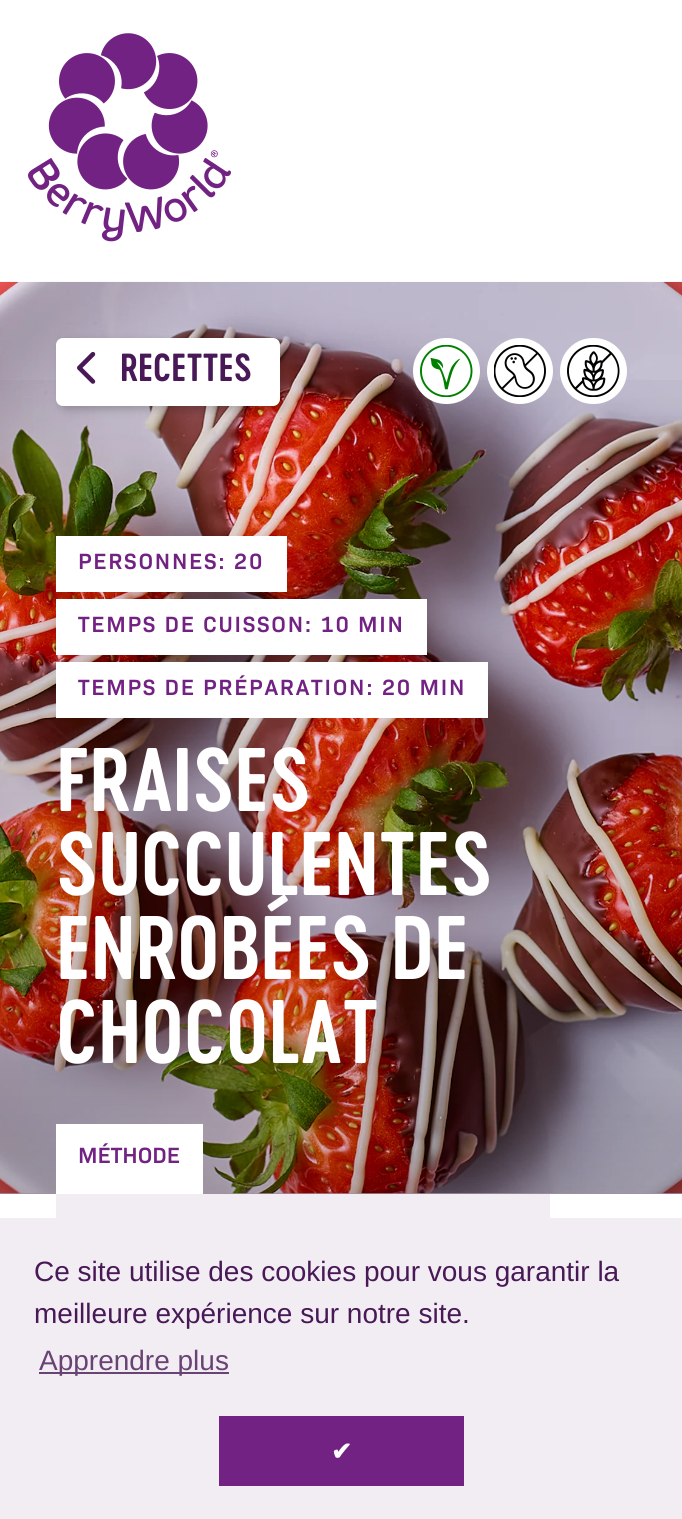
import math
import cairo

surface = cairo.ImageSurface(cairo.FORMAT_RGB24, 682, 1519)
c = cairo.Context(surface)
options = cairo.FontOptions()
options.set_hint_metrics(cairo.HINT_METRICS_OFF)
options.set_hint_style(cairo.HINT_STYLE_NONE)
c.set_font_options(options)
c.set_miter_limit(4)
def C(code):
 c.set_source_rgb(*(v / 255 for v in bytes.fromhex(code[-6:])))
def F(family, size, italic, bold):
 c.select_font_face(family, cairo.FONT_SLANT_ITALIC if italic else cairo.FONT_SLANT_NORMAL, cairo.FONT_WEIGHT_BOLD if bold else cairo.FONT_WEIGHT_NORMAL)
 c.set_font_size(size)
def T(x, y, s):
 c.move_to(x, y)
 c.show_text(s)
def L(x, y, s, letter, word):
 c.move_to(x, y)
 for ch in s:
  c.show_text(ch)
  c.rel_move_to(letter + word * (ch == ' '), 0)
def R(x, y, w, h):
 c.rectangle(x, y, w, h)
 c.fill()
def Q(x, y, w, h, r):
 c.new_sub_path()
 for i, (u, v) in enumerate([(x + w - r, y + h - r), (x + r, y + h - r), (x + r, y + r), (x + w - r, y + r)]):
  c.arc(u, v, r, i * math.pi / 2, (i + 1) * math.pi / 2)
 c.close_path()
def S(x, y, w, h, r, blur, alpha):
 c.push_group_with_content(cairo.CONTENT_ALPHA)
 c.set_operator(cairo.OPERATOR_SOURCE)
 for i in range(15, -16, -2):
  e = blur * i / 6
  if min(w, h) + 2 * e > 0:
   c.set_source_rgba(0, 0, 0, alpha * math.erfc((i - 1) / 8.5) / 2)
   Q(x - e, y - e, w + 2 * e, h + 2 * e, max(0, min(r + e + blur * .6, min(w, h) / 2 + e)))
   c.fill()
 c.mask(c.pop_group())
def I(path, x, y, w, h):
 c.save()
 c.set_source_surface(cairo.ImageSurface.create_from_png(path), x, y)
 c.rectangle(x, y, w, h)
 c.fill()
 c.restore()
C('ffffff')
c.paint()
I('1.png',28,33,203,209)
C('cab1cf')
R(0,1193,682,1)
I('2.png',0,281,682,913)
gradient = cairo.LinearGradient(341,282,341,1194)
gradient.add_color_stop_rgba(0,0,0,0,0)
gradient.add_color_stop_rgba(1,0,0,0,.2)
c.set_source(gradient)
R(0,380,682,814)
C('000000')
S(60,341,224,69,7,4.5,.2)
C('ffffff')
Q(56,338,224,68,7)
c.fill()
I('3.png',77,352,19,32)
F('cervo',36.5,0,0)
C('481956')
T(120,381,'RECETTES')
C('ffffff')
Q(413,338,67,66,33)
c.fill()
I('4.png',420,345,53,52)
c.arc(520,371,33,0,2 * math.pi)
c.fill()
I('5.png',494,345,52,52)
Q(560,338,67,66,33)
c.fill()
I('6.png',567,345,53,52)
R(56,536,231,56)
F('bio',22.4,0,0)
C('722282')
L(78,569,'PERSONNES: 20',1.75,0)
C('ffffff')
R(56,599,371,56)
C('722282')
L(78,632,'TEMPS DE CUISSON: 10 MIN',1.75,0)
C('ffffff')
R(56,662,432,56)
C('722282')
L(78,695,'TEMPS DE PRÉPARATION: 20 MIN',1.75,0)
F('cervo',84,0,0)
C('ffffff')
T(56,811,'FRAISES')
T(56,895,'SUCCULENTES')
T(56,979,'ENROBÉES DE')
T(56,1063,'CHOCOLAT')
R(56,1124,147,70)
F('bio',22.4,0,0)
C('722282')
T(78,1163,'MÉTHODE')
C('f1edf2')
R(56,1194,494,24)
R(0,1218,682,301)
F('Liberation Sans',28,0,0)
C('481956')
T(34,1281,'Ce site utilise des cookies pour vous garantir la')
T(34,1323,'meilleure expérience sur notre site.')
C('6a4375')
R(39,1372,190,2)
T(39,1370,'Apprendre plus')
C('722282')
R(219,1416,245,70)
F('DejaVu Sans',25,0,1)
C('ffffff')
T(331,1460,'✔')
surface.write_to_png('o.png')
